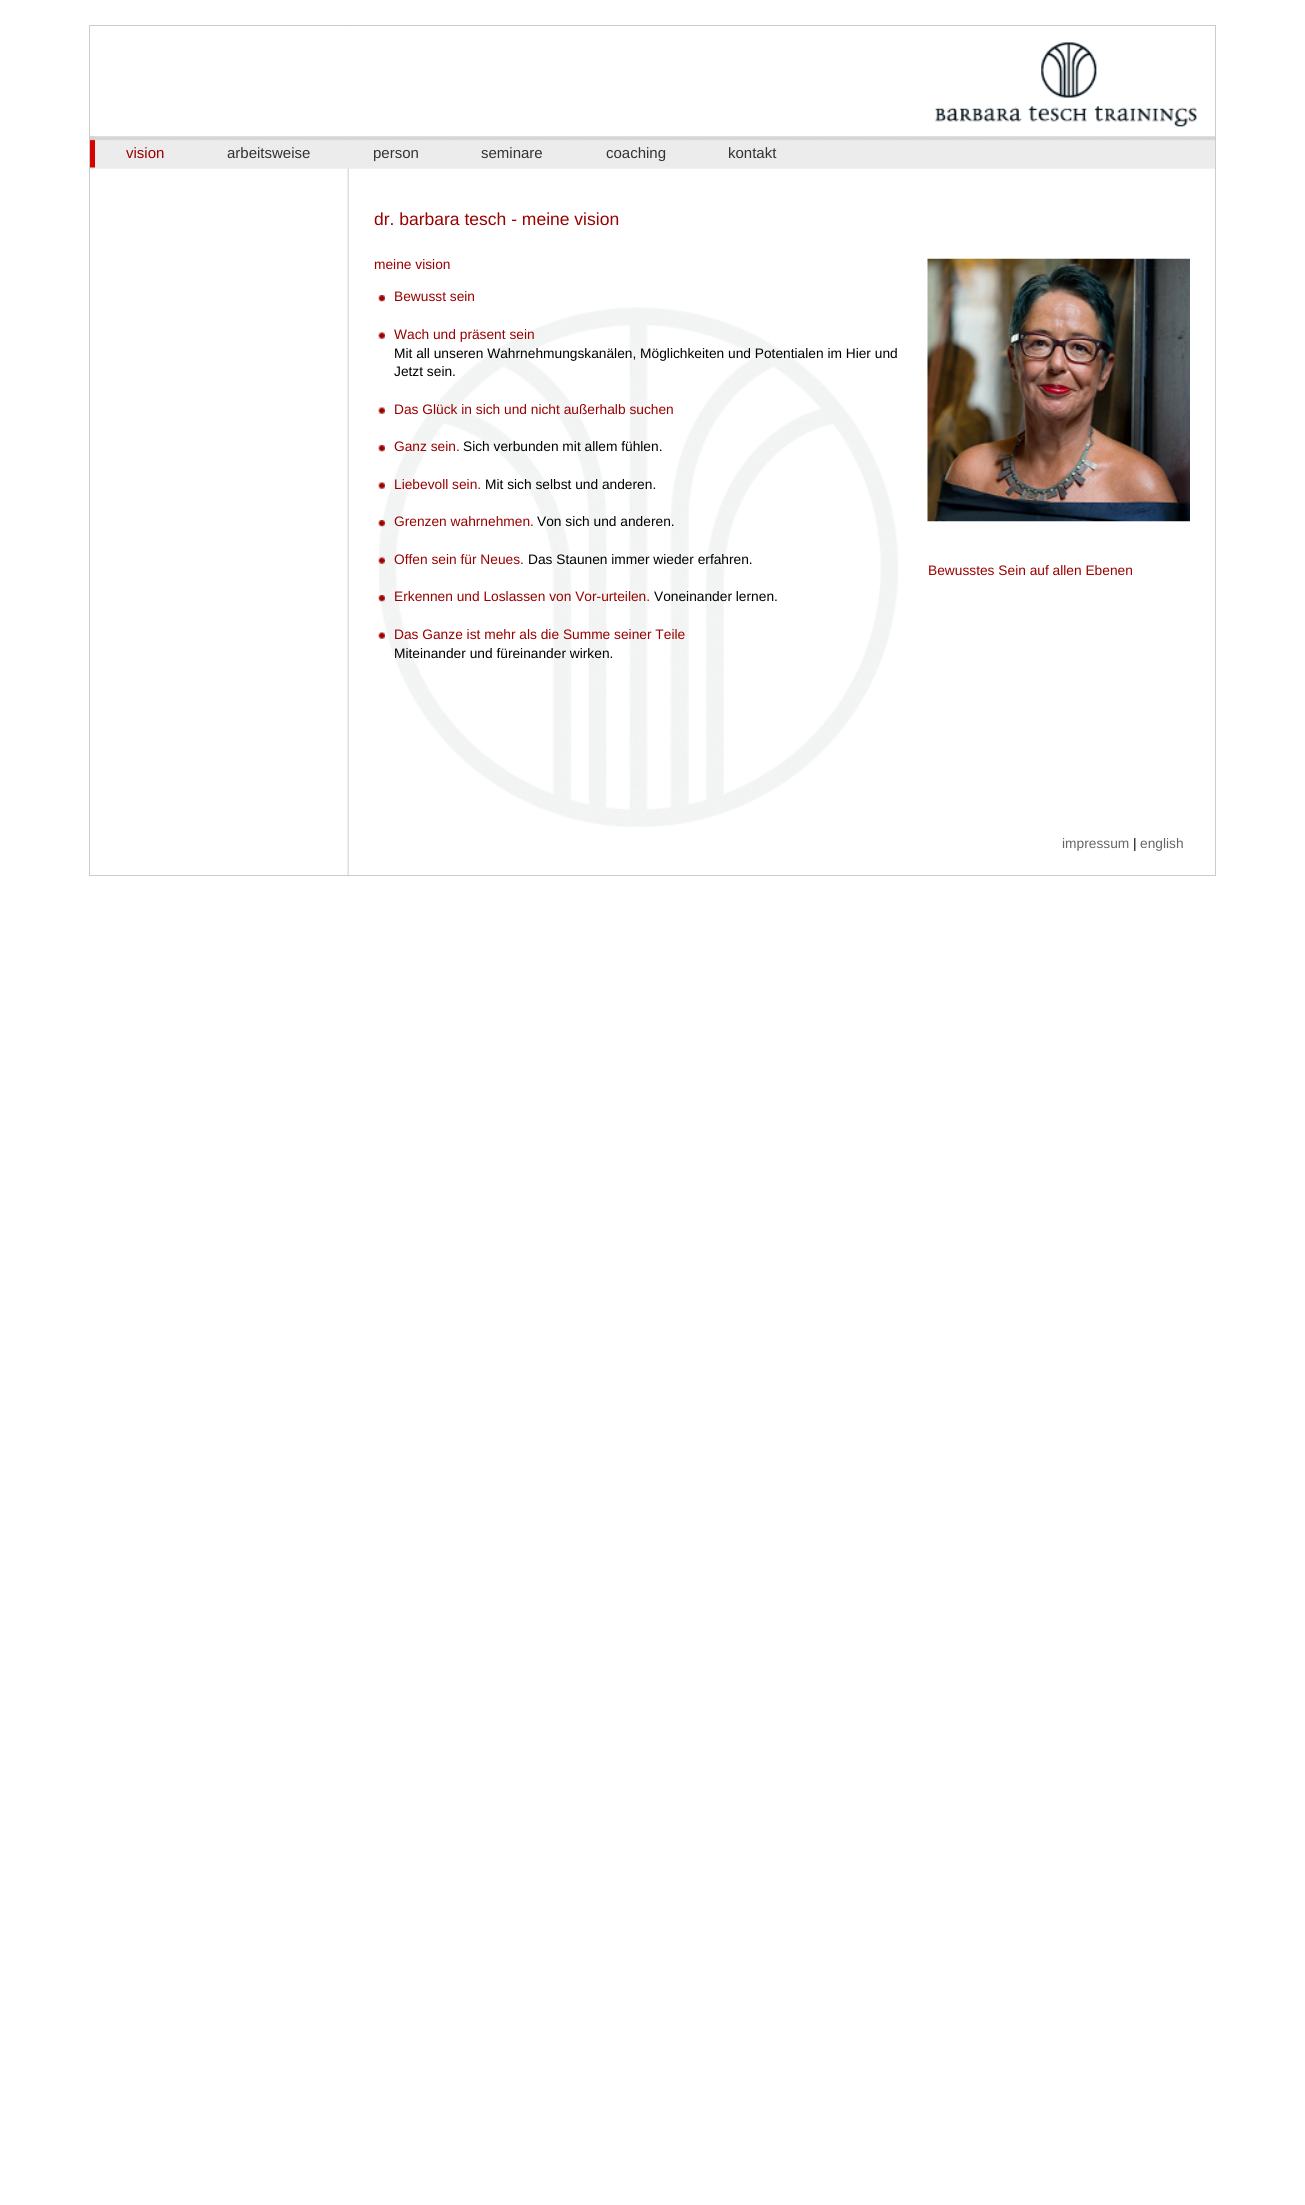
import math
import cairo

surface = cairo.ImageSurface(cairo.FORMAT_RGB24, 1305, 2205)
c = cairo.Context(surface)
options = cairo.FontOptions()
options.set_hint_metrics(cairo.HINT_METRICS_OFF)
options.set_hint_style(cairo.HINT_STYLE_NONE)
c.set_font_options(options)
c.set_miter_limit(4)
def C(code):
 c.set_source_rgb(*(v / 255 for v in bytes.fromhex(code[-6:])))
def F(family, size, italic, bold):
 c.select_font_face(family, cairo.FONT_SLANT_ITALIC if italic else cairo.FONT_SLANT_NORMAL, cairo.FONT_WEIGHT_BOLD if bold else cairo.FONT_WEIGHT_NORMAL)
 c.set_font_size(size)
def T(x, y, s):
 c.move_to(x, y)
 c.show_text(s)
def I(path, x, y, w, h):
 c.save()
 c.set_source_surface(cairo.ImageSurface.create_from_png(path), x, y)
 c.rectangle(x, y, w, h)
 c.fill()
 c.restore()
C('ffffff')
c.paint()
I('1.png',347,26,2,851)
c.rectangle(89.5,25.5,1126,850)
C('cccccc')
c.set_line_width(1)
c.stroke()
I('2.png',347,26,850,111)
I('3.png',90,136,1125,33)
I('4.png',90,136,5,32)
I('5.png',90,148,2,2)
F('Liberation Sans',15,0,0)
C('990000')
T(126,158,'vision')
C('333333')
T(227,158,'arbeitsweise')
T(373,158,'person')
T(481,158,'seminare')
T(606,158,'coaching')
T(728,158,'kontakt')
I('6.png',379,307,520,520)
F('Liberation Sans',17.5,0,0)
C('990000')
T(374,225,'dr. barbara tesch - meine vision')
F('Liberation Sans',13.75,0,0)
T(374,269,'meine vision')
I('7.png',378,295,7,7)
T(394,301,'Bewusst sein')
I('8.png',378,332,7,7)
T(394,339,'Wach und präsent sein')
C('000000')
T(394,358,'Mit all unseren Wahrnehmungskanälen, Möglichkeiten und Potentialen im Hier und')
T(394,376,'Jetzt sein.')
I('8.png',378,407,7,7)
C('990000')
T(394,414,'Das Glück in sich und nicht außerhalb suchen')
I('7.png',378,445,7,7)
T(394,451,'Ganz sein.')
C('000000')
T(463,451,'Sich verbunden mit allem fühlen.')
I('8.png',378,482,7,7)
C('990000')
T(394,489,'Liebevoll sein.')
C('000000')
T(485,489,'Mit sich selbst und anderen.')
I('9.png',378,520,7,7)
C('990000')
T(394,526,'Grenzen wahrnehmen.')
C('000000')
T(537,526,'Von sich und anderen.')
I('10.png',378,557,7,7)
C('990000')
T(394,564,'Offen sein für Neues.')
C('000000')
T(528,564,'Das Staunen immer wieder erfahren.')
I('11.png',378,595,7,7)
C('990000')
T(394,601,'Erkennen und Loslassen von Vor-urteilen.')
C('000000')
T(654,601,'Voneinander lernen.')
I('8.png',378,632,7,7)
C('990000')
T(394,639,'Das Ganze ist mehr als die Summe seiner Teile')
C('000000')
T(394,658,'Miteinander und füreinander wirken.')
I('12.png',927,258,263,264)
C('990000')
T(928,575,'Bewusstes Sein auf allen Ebenen')
C('666666')
T(1062,848,'impressum')
C('000000')
T(1133,848,'|')
C('666666')
T(1140,848,'english')
surface.write_to_png('o.png')
